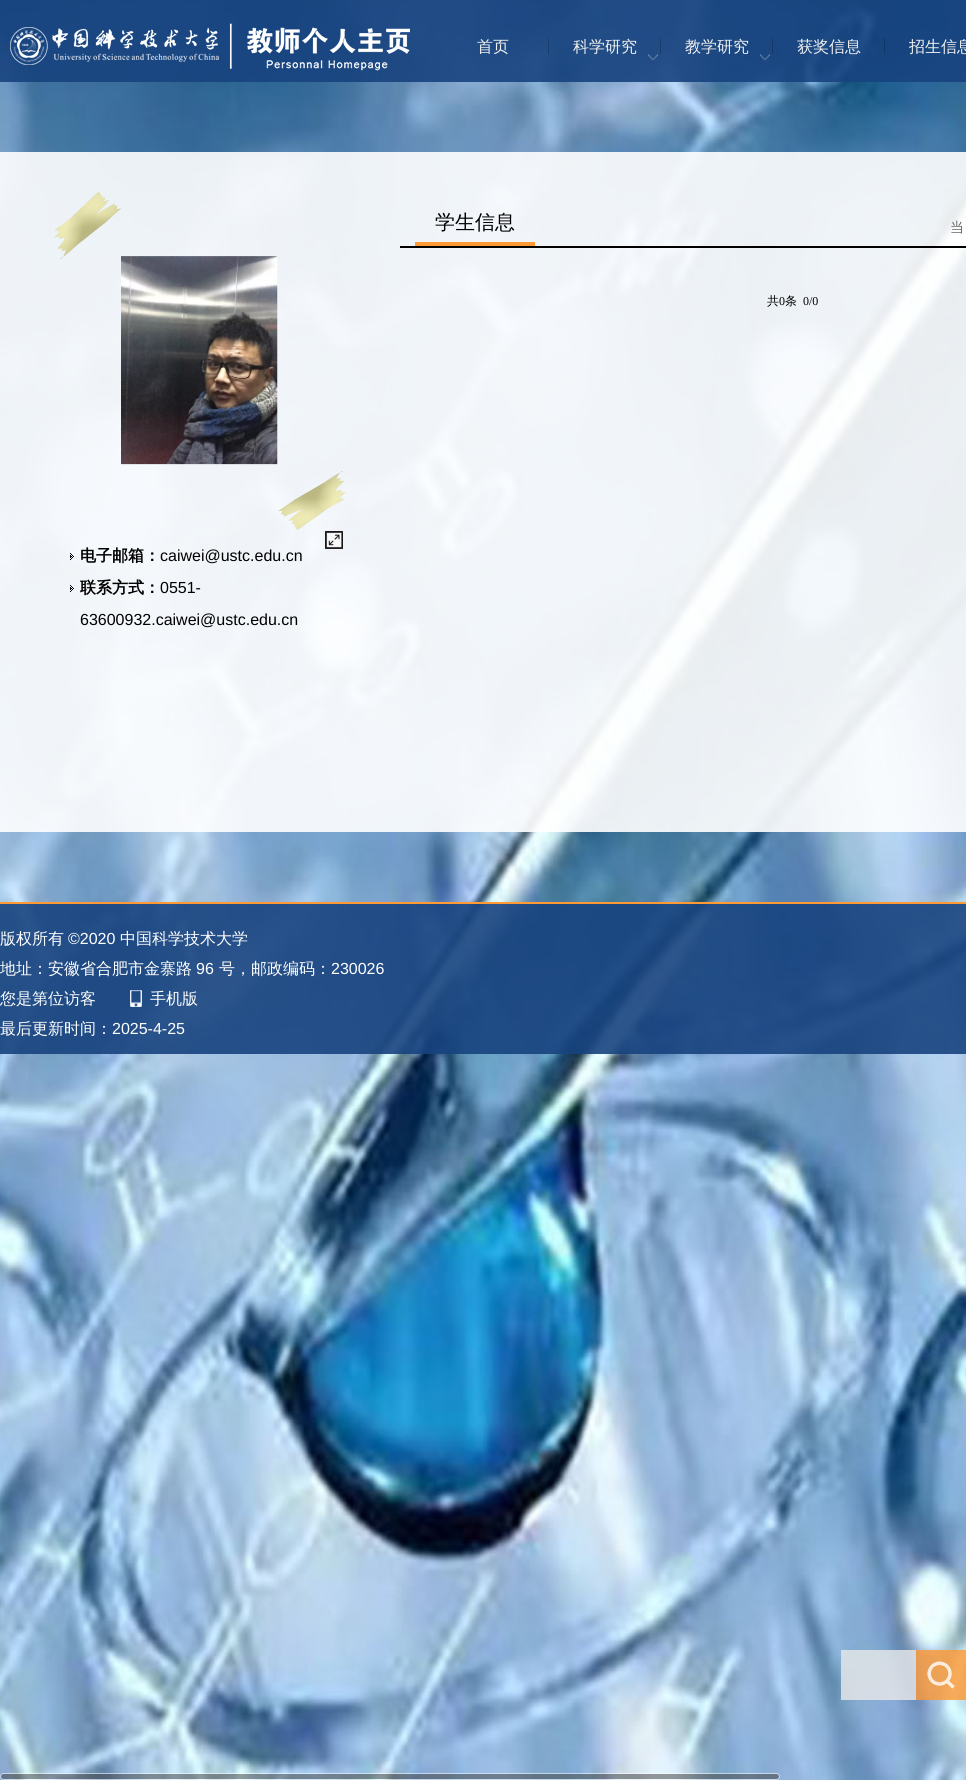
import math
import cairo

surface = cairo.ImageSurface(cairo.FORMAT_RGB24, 966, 1780)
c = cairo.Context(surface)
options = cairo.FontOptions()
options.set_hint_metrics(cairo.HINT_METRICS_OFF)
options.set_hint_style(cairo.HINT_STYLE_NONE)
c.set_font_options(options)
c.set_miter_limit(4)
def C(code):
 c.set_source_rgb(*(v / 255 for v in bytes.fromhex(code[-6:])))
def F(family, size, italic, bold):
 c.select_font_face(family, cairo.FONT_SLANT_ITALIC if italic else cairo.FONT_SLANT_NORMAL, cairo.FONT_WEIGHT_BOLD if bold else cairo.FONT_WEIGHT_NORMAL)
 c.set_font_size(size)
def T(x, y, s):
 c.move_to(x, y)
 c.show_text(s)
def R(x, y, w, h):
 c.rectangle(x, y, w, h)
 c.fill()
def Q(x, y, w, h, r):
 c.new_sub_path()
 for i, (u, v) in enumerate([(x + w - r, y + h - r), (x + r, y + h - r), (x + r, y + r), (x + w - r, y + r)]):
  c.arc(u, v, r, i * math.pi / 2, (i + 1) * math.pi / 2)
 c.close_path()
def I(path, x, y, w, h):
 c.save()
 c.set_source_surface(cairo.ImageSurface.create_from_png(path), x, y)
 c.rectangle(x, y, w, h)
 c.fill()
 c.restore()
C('ffffff')
c.paint()
I('1.png',0,0,966,1780)
c.set_source_rgba(0.094,0.263,0.498,0.9)
R(0,0,966,82)
I('2.png',10,23,400,48)
C('1b3d6b')
R(548,38,1,16)
F('WenQuanYi Zen Hei Medium',16,0,0)
C('f0f0f0')
T(477,52,'首页')
C('1b3d6b')
R(660,38,1,16)
C('f0f0f0')
T(573,52,'科学研究')
I('3.png',647,53,12,8)
C('153867')
R(772,38,1,16)
C('f0f0f0')
T(685,52,'教学研究')
I('4.png',759,53,12,8)
C('123765')
R(884,38,1,16)
C('f0f0f0')
T(797,52,'获奖信息')
T(909,52,'招生信息')
c.set_source_rgba(1,1,1,0.9)
R(0,152,966,680)
C('000000')
R(400,246,566,2)
C('ff9933')
R(415,242,120,4)
F('WenQuanYi Zen Hei Medium',20,0,0)
C('000000')
T(435,229,'学生信息')
F('WenQuanYi Zen Hei Medium',14,0,0)
C('666666')
T(950,232,'当')
F('WenQuanYi Zen Hei Medium',12,0,0)
C('000000')
T(767,305,'共')
F('Liberation Serif',12,0,0)
T(779,305,'0')
F('WenQuanYi Zen Hei Medium',12,0,0)
T(785,305,'条')
F('Liberation Serif',12,0,0)
T(803,305,'0/0')
I('6.png',121,256,157,209)
I('5.png',54,192,292,338)
I('7.png',70,553,4,7)
F('WenQuanYi Zen Hei',16,0,1)
T(80,561,'电子邮箱：')
F('Liberation Sans',16,0,0)
T(160,561,'caiwei@ustc.edu.cn')
I('8.png',70,585,4,7)
F('WenQuanYi Zen Hei',16,0,1)
T(80,593,'联系方式：')
F('Liberation Sans',16,0,0)
T(160,593,'0551-')
T(80,625,'63600932.caiwei@ustc.edu.cn')
I('9.png',325,531,18,18)
c.set_source_rgba(0.094,0.263,0.498,0.9)
R(0,904,966,150)
C('ff9933')
R(0,902,966,2)
F('WenQuanYi Zen Hei Medium',16,0,0)
C('ffffff')
T(0,944,'版权所有')
F('Liberation Sans',16,0,0)
T(68,944,'©2020')
F('WenQuanYi Zen Hei Medium',16,0,0)
T(120,944,'中国科学技术大学')
T(0,974,'地址：安徽省合肥市金寨路')
F('Liberation Sans',16,0,0)
T(196,974,'96')
F('WenQuanYi Zen Hei Medium',16,0,0)
T(219,974,'号，邮政编码：')
F('Liberation Sans',16,0,0)
T(331,974,'230026')
F('WenQuanYi Zen Hei Medium',16,0,0)
T(0,1004,'您是第位访客')
I('10.png',130,990,12,17)
T(150,1004,'手机版')
T(0,1034,'最后更新时间：')
F('Liberation Sans',16,0,0)
T(112,1034,'2025-4-25')
c.set_source_rgba(0.91,0.91,0.91,0.8)
R(841,1650,75,50)
c.set_source_rgba(1,0.6,0.2,0.8)
R(916,1650,50,50)
I('11.png',927,1661,28,28)
c.set_source_rgba(0.259,0.259,0.259,0.52)
Q(1,1774,778,5,2.5)
c.fill()
Q(.5,1773.5,779,6,3)
c.set_source_rgba(1,1,1,0.52)
c.set_line_width(1)
c.stroke()
surface.write_to_png('o.png')
